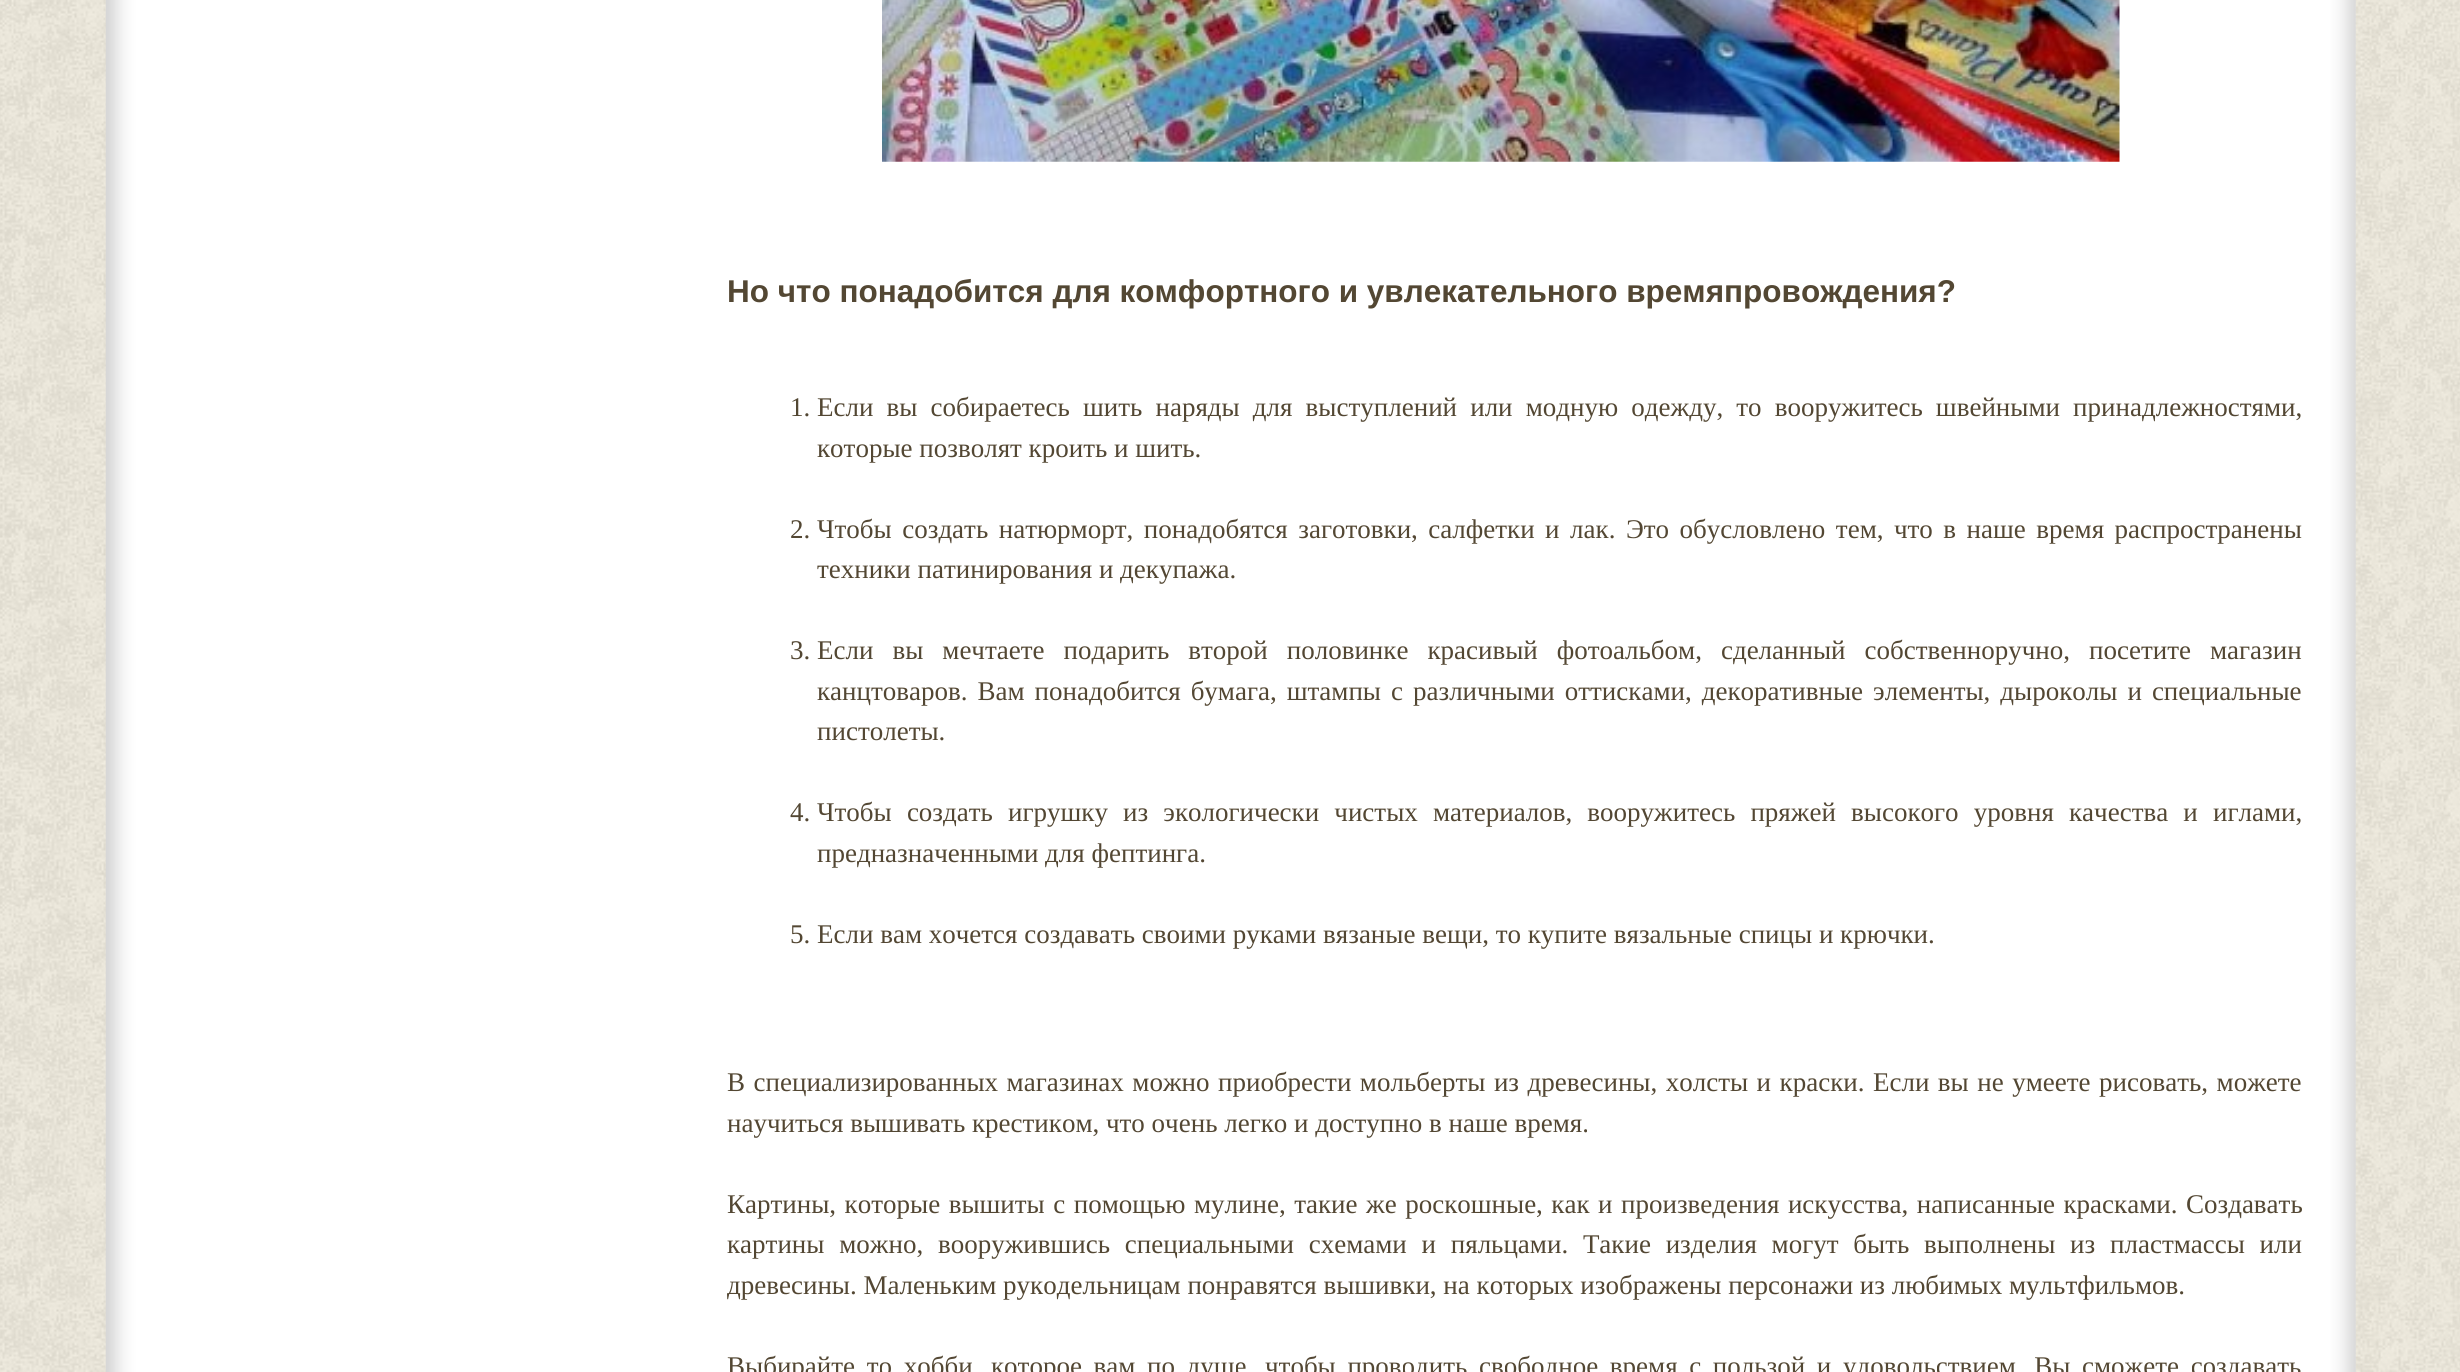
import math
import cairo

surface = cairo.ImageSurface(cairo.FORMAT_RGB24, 2460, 1372)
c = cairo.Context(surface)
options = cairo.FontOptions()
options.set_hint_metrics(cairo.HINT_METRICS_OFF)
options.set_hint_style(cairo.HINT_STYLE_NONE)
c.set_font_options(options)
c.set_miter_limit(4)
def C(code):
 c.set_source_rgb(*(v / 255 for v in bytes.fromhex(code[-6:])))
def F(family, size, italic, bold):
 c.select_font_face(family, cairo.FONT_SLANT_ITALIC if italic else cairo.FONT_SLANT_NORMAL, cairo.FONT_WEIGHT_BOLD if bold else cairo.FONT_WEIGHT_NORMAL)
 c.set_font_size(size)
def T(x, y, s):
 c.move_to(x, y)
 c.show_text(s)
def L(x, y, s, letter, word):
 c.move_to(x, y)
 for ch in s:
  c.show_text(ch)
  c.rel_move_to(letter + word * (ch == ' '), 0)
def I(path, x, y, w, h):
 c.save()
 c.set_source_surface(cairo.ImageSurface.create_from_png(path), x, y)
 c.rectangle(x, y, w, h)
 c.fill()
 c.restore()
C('ffffff')
c.paint()
I('1.png',0,0,2460,1372)
I('2.png',105,0,2251,1372)
I('3.png',882,0,1238,162)
F('Liberation Sans',31.5,0,1)
C('534733')
T(727,302,'Но что понадобится для комфортного и увлекательного времяпровождения?')
F('Liberation Serif',27,0,0)
T(790,416,'1.')
L(817,416,'Если вы собираетесь шить наряды для выступлений или модную одежду, то вооружитесь швейными принадлежностями,',0,6.4)
T(817,457,'которые позволят кроить и шить.')
T(790,538,'2.')
L(817,538,'Чтобы создать натюрморт, понадобятся заготовки, салфетки и лак. Это обусловлено тем, что в наше время распространены',0,3.75)
T(817,578,'техники патинирования и декупажа.')
T(790,659,'3.')
L(817,659,'Если вы мечтаете подарить второй половинке красивый фотоальбом, сделанный собственноручно, посетите магазин',0,12.25)
L(817,700,'канцтоваров. Вам понадобится бумага, штампы с различными оттисками, декоративные элементы, дыроколы и специальные',0,3.25)
T(817,740,'пистолеты.')
T(790,821,'4.')
L(817,821,'Чтобы создать игрушку из экологически чистых материалов, вооружитесь пряжей высокого уровня качества и иглами,',0,8.4)
T(817,862,'предназначенными для фептинга.')
T(790,943,'5. Если вам хочется создавать своими руками вязаные вещи, то купите вязальные спицы и крючки.')
L(727,1091,'В специализированных магазинах можно приобрести мольберты из древесины, холсты и краски. Если вы не умеете рисовать, можете',0,1.75)
T(727,1132,'научиться вышивать крестиком, что очень легко и доступно в наше время.')
L(727,1213,'Картины, которые вышиты с помощью мулине, такие же роскошные, как и произведения искусства, написанные красками. Создавать',0,1.75)
L(727,1253,'картины можно, вооружившись специальными схемами и пяльцами. Такие изделия могут быть выполнены из пластмассы или',0,8)
c.save()
c.rectangle(727,0,1575,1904)
c.clip()
T(727,1294,'древесины. Маленьким рукодельницам понравятся вышивки, на которых изображены персонажи из любимых мультфильмов.')
c.restore()
L(727,1375,'Выбирайте то хобби, которое вам по душе, чтобы проводить свободное время с пользой и удовольствием. Вы сможете создавать',0,4.9)
surface.write_to_png('o.png')
